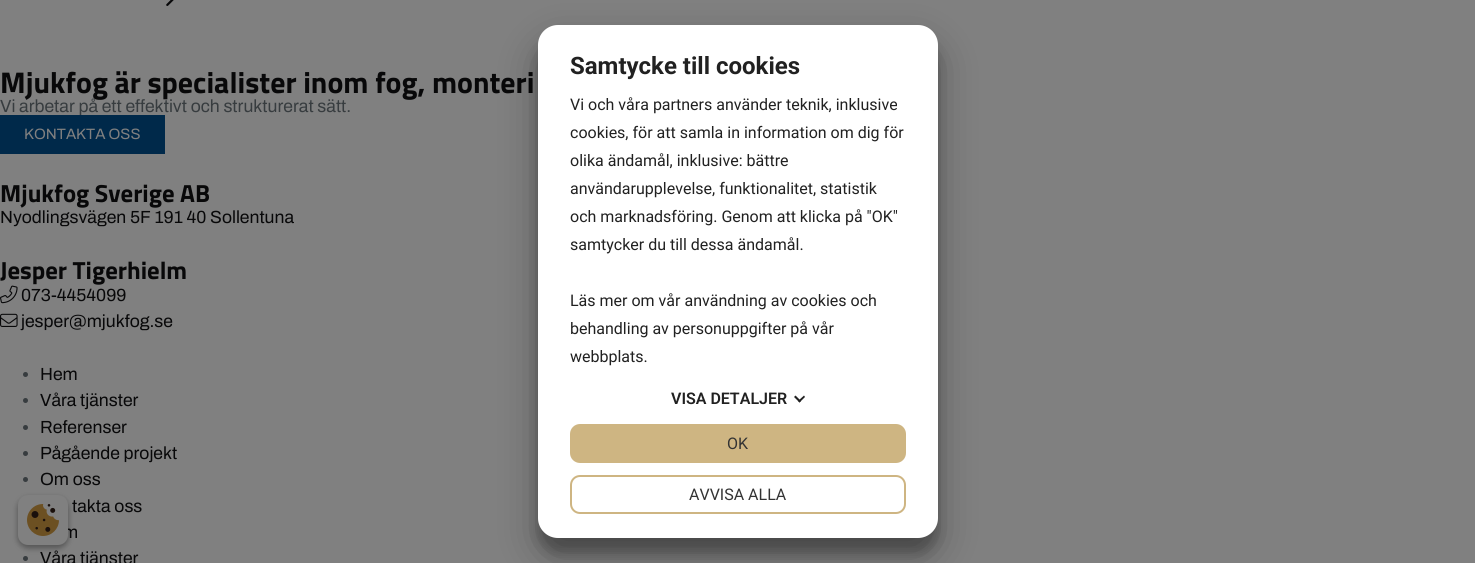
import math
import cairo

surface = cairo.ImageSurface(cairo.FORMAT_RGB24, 1475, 563)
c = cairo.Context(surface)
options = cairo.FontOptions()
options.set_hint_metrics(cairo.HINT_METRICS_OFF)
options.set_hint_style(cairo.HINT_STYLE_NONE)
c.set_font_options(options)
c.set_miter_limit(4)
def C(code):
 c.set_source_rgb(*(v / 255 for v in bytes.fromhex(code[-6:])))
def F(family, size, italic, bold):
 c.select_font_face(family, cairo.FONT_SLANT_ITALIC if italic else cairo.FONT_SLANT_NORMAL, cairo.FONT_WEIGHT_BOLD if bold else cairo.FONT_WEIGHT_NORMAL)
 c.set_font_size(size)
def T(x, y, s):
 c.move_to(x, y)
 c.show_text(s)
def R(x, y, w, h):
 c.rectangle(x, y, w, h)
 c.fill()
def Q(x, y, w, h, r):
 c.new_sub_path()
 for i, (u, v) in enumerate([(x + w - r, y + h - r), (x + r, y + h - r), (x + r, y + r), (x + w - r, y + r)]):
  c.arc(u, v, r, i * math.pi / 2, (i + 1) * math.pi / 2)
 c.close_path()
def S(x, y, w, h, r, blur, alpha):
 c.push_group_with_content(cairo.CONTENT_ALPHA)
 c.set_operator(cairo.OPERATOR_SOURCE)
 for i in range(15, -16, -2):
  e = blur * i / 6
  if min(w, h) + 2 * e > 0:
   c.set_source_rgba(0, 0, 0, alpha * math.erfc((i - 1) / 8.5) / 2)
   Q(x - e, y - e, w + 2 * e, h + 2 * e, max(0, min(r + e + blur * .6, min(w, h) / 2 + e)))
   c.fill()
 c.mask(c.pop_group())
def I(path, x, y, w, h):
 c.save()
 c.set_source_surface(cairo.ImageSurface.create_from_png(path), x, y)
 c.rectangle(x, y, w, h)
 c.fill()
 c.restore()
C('808080')
c.paint()
I('1.png',166,0,8,6)
F('Titillium Web',29.9,0,1)
C('080809')
T(0,93,'Mjukfog är specialister inom fog, monteri')
F('Archivo',17.6,0,0)
C('373c3f')
T(0,112,'Vi arbetar på ett effektivt och strukturerat sätt.')
C('00294a')
R(0,115,165,39)
F('Archivo',15,0,0)
C('808080')
T(24,139,'KONTAKTA OSS')
F('Titillium Web',24.75,0,1)
C('080809')
T(0,202,'Mjukfog Sverige AB')
F('Archivo',17.6,0,0)
T(0,223,'Nyodlingsvägen 5F 191 40 Sollentuna')
F('Titillium Web',24.75,0,1)
T(0,279,'Jesper Tigerhielm')
I('2.png',0,285,18,19)
F('Archivo',17.6,0,0)
T(21,301,'073-4454099')
I('3.png',0,313,18,14)
T(21,327,'jesper@mjukfog.se')
C('373c3f')
c.new_path()
c.arc(25.5,374.5,2.5,0,2 * math.pi)
c.fill()
C('080809')
T(40,380,'Hem')
C('373c3f')
c.new_path()
c.arc(25.5,400.5,2.5,0,2 * math.pi)
c.fill()
C('080809')
T(40,406,'Våra tjänster')
C('373c3f')
c.new_path()
c.arc(25.5,427.5,2.5,0,2 * math.pi)
c.fill()
C('080809')
T(40,433,'Referenser')
C('373c3f')
c.new_path()
c.arc(25.5,453.5,2.5,0,2 * math.pi)
c.fill()
C('080809')
T(40,459,'Pågående projekt')
C('373c3f')
c.new_path()
c.arc(25.5,479.5,2.5,0,2 * math.pi)
c.fill()
C('080809')
T(40,485,'Om oss')
T(72,512,'takta oss')
T(63,538,'m')
C('373c3f')
c.new_path()
c.arc(25.5,558.5,2.5,0,2 * math.pi)
c.fill()
C('080809')
T(40,564,'Våra tjänster')
C('000000')
S(538,40,400,513,20,6,.22)
S(538,44,400,513,20,19,.3)
C('ffffff')
Q(538,25,400,513,20)
c.fill()
F('Roboto',24,0,1)
C('212121')
T(570,74,'Samtycke till cookies')
F('Roboto',16,0,0)
T(570,110,'Vi och våra partners använder teknik, inklusive')
T(570,138,'cookies, för att samla in information om dig för')
T(570,166,'olika ändamål, inklusive: bättre')
T(570,194,'användarupplevelse, funktionalitet, statistik')
T(570,222,'och marknadsföring. Genom att klicka på "OK"')
T(570,250,'samtycker du till dessa ändamål.')
T(570,306,'Läs mer om vår användning av cookies och')
T(570,334,'behandling av personuppgifter på vår')
T(570,362,'webbplats.')
F('Roboto SemiBold',16,0,0)
T(671,404,'VISA DETALJER')
c.new_path()
c.move_to(804,395.5)
c.line_to(805,397)
c.line_to(799.5,402.5)
c.line_to(798,401)
c.close_path()
c.fill()
c.new_path()
c.move_to(795.5,395.5)
c.line_to(801,401)
c.line_to(799.5,402.5)
c.line_to(794,397)
c.close_path()
c.fill()
C('ceb582')
Q(571,425,334,37,9)
c.fill_preserve()
c.stroke()
F('Roboto',16,0,0)
C('333333')
T(727,449,'OK')
Q(571,476,334,37,9)
C('ceb582')
c.stroke()
C('333333')
T(689,500,'AVVISA ALLA')
C('000000')
S(18,498,50,50,10,3,.23)
S(18,498,50,50,10,3,.16)
C('808080')
Q(18,495,50,50,10)
c.fill()
I('4.png',27,504,32,32)
surface.write_to_png('o.png')
